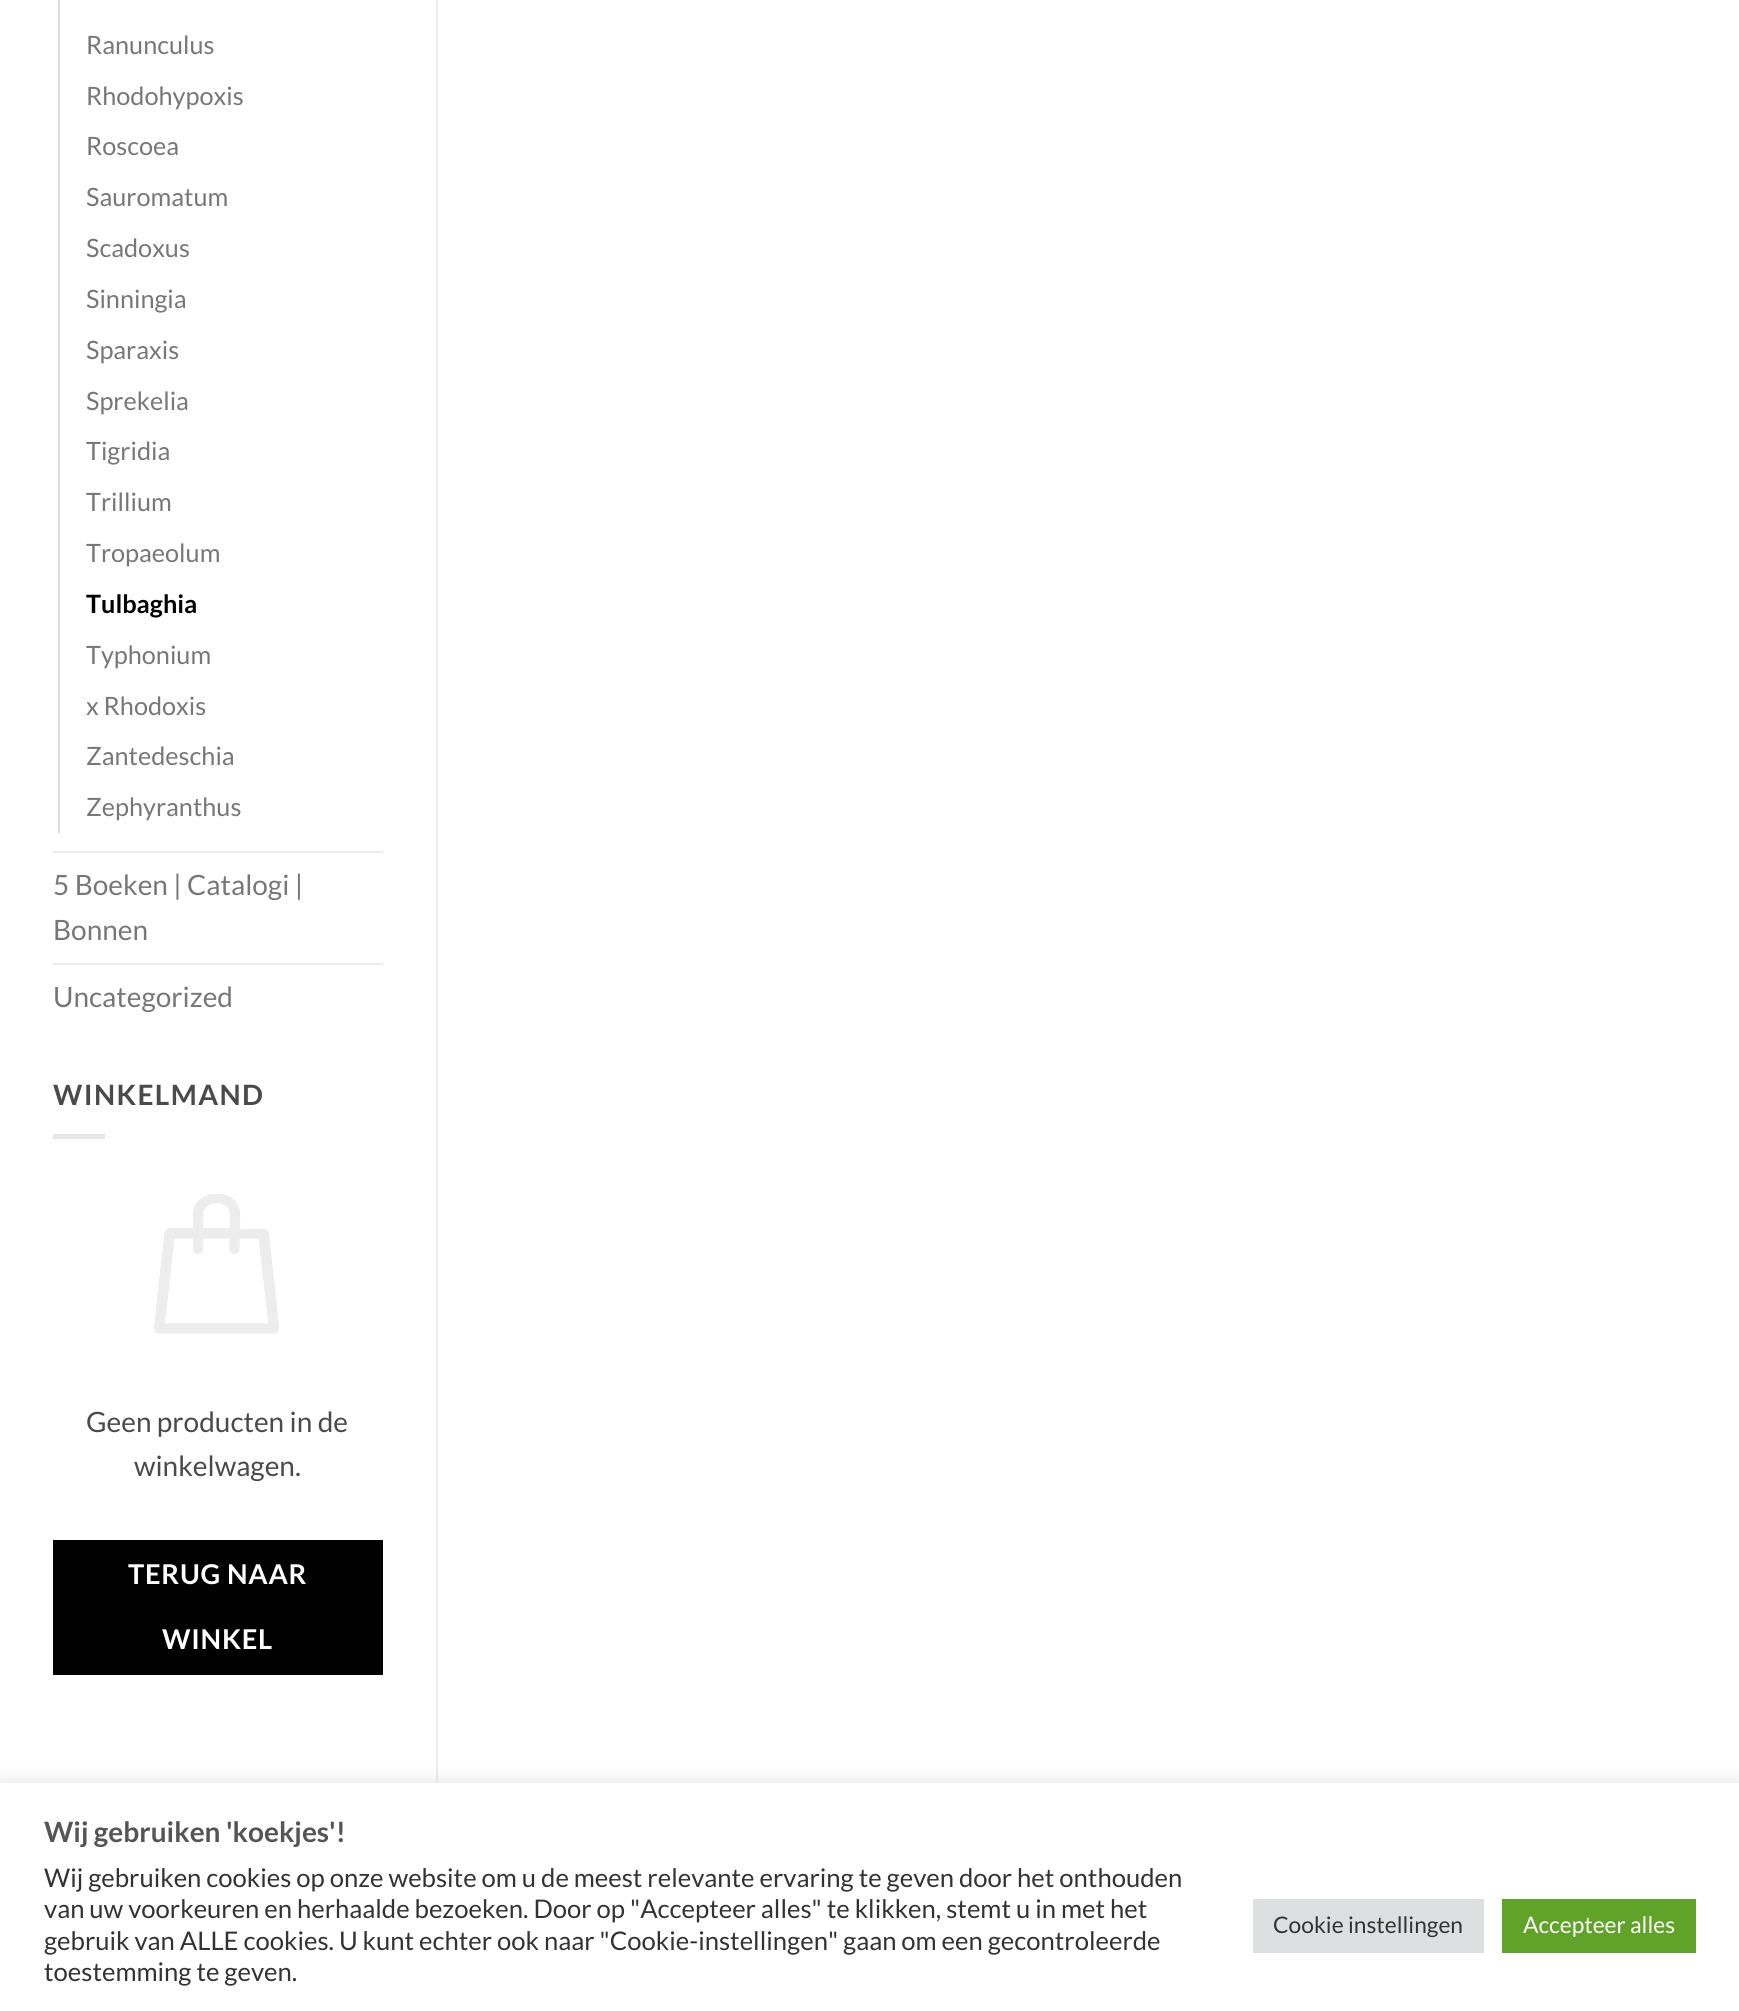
import math
import cairo

surface = cairo.ImageSurface(cairo.FORMAT_RGB24, 1739, 2011)
c = cairo.Context(surface)
options = cairo.FontOptions()
options.set_hint_metrics(cairo.HINT_METRICS_OFF)
options.set_hint_style(cairo.HINT_STYLE_NONE)
c.set_font_options(options)
c.set_miter_limit(4)
def C(code):
 c.set_source_rgb(*(v / 255 for v in bytes.fromhex(code[-6:])))
def F(family, size, italic, bold):
 c.select_font_face(family, cairo.FONT_SLANT_ITALIC if italic else cairo.FONT_SLANT_NORMAL, cairo.FONT_WEIGHT_BOLD if bold else cairo.FONT_WEIGHT_NORMAL)
 c.set_font_size(size)
def T(x, y, s):
 c.move_to(x, y)
 c.show_text(s)
def L(x, y, s, letter, word):
 c.move_to(x, y)
 for ch in s:
  c.show_text(ch)
  c.rel_move_to(letter + word * (ch == ' '), 0)
def R(x, y, w, h):
 c.rectangle(x, y, w, h)
 c.fill()
def Q(x, y, w, h, r):
 c.new_sub_path()
 for i, (u, v) in enumerate([(x + w - r, y + h - r), (x + r, y + h - r), (x + r, y + r), (x + w - r, y + r)]):
  c.arc(u, v, r, i * math.pi / 2, (i + 1) * math.pi / 2)
 c.close_path()
def S(x, y, w, h, r, blur, alpha):
 c.push_group_with_content(cairo.CONTENT_ALPHA)
 c.set_operator(cairo.OPERATOR_SOURCE)
 for i in range(15, -16, -2):
  e = blur * i / 6
  if min(w, h) + 2 * e > 0:
   c.set_source_rgba(0, 0, 0, alpha * math.erfc((i - 1) / 8.5) / 2)
   Q(x - e, y - e, w + 2 * e, h + 2 * e, max(0, min(r + e + blur * .6, min(w, h) / 2 + e)))
   c.fill()
 c.mask(c.pop_group())
def I(path, x, y, w, h):
 c.save()
 c.set_source_surface(cairo.ImageSurface.create_from_png(path), x, y)
 c.rectangle(x, y, w, h)
 c.fill()
 c.restore()
C('ffffff')
c.paint()
C('dddddd')
R(58,0,2,833)
F('Lato',25.25,0,0)
C('777777')
T(86,54,'Ranunculus')
T(86,105,'Rhodohypoxis')
T(86,155,'Roscoea')
T(86,206,'Sauromatum')
T(86,257,'Scadoxus')
T(86,308,'Sinningia')
T(86,359,'Sparaxis')
T(86,410,'Sprekelia')
T(86,460,'Tigridia')
T(86,511,'Trillium')
T(86,562,'Tropaeolum')
F('Lato',25.25,0,1)
C('000000')
T(86,613,'Tulbaghia')
F('Lato',25.25,0,0)
C('777777')
T(86,664,'Typhonium')
T(86,715,'x Rhodoxis')
T(86,765,'Zantedeschia')
T(86,816,'Zephyranthus')
C('ececec')
R(53,851,330,2)
F('Lato',28,0,0)
C('777777')
T(53,895,'5 Boeken | Catalogi |')
T(53,940,'Bonnen')
C('ececec')
R(53,963,330,2)
C('777777')
T(53,1007,'Uncategorized')
F('Lato',28,0,1)
C('4a4a4a')
L(53,1105,'WINKELMAND',1.4,0)
C('e6e6e6')
R(53,1134,52,5)
I('1.png',154,1194,126,140)
F('Lato',28,0,0)
C('4a4a4a')
T(86,1432,'Geen producten in de')
T(134,1476,'winkelwagen.')
C('000000')
R(53,1540,330,135)
F('Lato',27.25,0,1)
C('ffffff')
L(128,1584,'TERUG NAAR',.75,0)
L(162,1649,'WINKEL',.75,0)
C('ececec')
R(436,0,2,1783)
C('acabab')
S(0,1782,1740,229,0,9,.3)
C('ffffff')
R(0,1783,1739,228)
F('Lato',28,0,1)
C('555555')
T(44,1842,'Wij gebruiken \'koekjes\'!')
F('Lato',25.65,0,0)
C('333333')
T(44,1887,'Wij gebruiken cookies op onze website om u de meest relevante ervaring te geven door het onthouden')
T(44,1918,'van uw voorkeuren en herhaalde bezoeken. Door op "Accepteer alles" te klikken, stemt u in met het')
T(44,1950,'gebruik van ALLE cookies. U kunt echter ook naar "Cookie-instellingen" gaan om een gecontroleerde')
T(44,1981,'toestemming te geven.')
C('dedfe0')
R(1253,1899,231,54)
F('Lato',22.75,0,0)
C('333333')
T(1273,1933,'Cookie instellingen')
C('61a229')
R(1502,1899,194,54)
C('ffffff')
T(1523,1933,'Accepteer alles')
surface.write_to_png('o.png')
